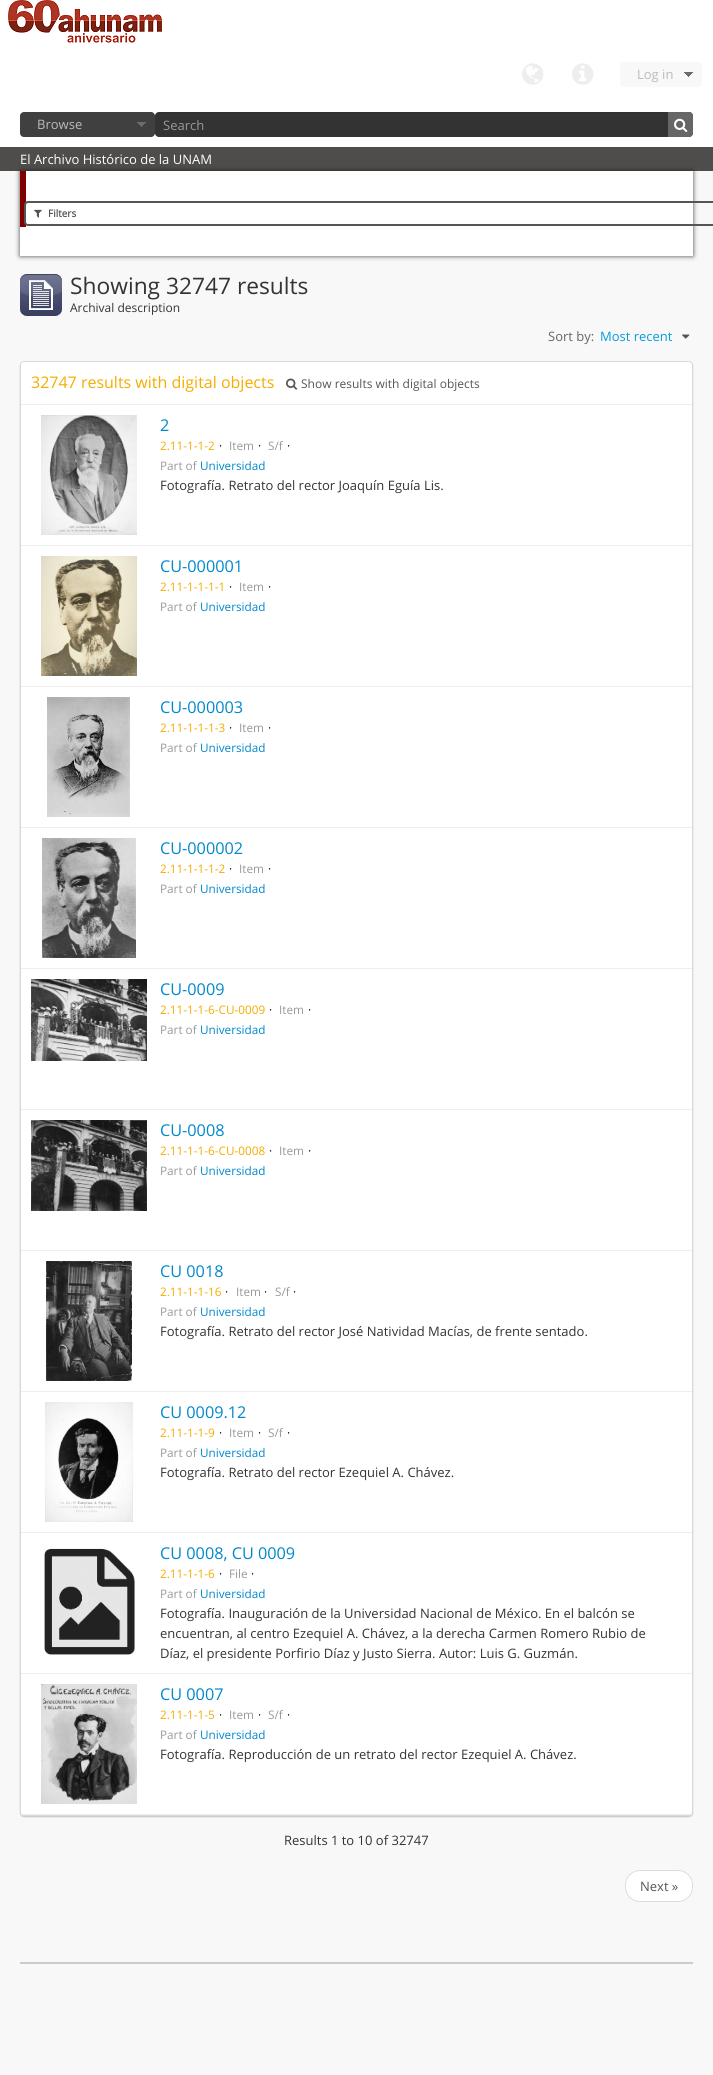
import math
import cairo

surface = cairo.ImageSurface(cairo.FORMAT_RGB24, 713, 2075)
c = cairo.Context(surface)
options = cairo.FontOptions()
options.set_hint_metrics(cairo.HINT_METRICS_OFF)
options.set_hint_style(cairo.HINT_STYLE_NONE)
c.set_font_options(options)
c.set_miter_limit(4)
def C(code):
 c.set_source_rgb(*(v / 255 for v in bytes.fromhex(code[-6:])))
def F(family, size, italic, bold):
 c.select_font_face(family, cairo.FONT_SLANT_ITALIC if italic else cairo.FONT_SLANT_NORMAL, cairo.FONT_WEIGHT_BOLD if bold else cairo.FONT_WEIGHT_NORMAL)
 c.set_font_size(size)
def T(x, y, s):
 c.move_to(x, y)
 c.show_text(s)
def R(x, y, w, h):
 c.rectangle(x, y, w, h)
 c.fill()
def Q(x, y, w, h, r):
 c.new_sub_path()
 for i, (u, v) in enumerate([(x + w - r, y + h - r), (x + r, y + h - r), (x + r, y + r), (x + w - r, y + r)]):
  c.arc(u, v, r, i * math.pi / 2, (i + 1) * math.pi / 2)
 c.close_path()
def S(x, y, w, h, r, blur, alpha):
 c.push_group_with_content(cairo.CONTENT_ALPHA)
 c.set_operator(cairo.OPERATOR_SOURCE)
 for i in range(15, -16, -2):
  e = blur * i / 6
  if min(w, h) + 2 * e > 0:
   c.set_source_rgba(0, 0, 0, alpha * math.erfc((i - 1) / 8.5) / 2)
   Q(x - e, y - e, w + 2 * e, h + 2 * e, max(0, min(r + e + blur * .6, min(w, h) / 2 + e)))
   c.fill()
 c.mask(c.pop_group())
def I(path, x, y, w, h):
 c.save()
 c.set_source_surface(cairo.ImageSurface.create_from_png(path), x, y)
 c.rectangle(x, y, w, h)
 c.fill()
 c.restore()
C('f8f8f8')
c.paint()
C('ffffff')
R(0,0,713,147)
I('1.png',8,0,154,43)
I('2.png',522,63,22,22)
I('3.png',572,63,22,22)
C('f8f8f8')
Q(620,62,82,25,4)
c.fill()
I('4.png',684,72,9,5)
F('Open Sans',13,0,0)
C('bbbbbb')
T(637,79,'Log in')
C('404040')
Q(20,112,135,25,4)
c.fill()
I('5.png',137,122,9,5)
C('bbbbbb')
T(37,129,'Browse')
C('333333')
Q(155,112,538,25,4)
c.fill()
c.set_source_rgba(0,0,0,0.07)
c.new_path()
c.move_to(159,113)
c.line_to(689,113)
c.curve_to(691,113,693,115,693,117)
c.line_to(693,116)
c.curve_to(693,114,691,112,689,112)
c.line_to(159,112)
c.curve_to(157,112,155,114,155,116)
c.line_to(155,117)
c.curve_to(155,115,157,113,159,113)
c.close_path()
c.fill()
C('999999')
T(163,130,'Search')
C('666666')
c.new_path()
c.move_to(668,112)
c.line_to(689,112)
c.curve_to(691,112,693,114,693,116)
c.line_to(693,133)
c.curve_to(693,135,691,137,689,137)
c.line_to(668,137)
c.close_path()
c.fill()
I('6.png',674,118,14,14)
C('444444')
S(20,171,673,85,0,2.5,1)
c.set_source_rgba(0.086,0.082,0.078,0.75)
R(0,147,713,24)
C('ffffff')
T(20,164,'El Archivo Histórico de la UNAM')
R(20,171,673,85)
C('800000')
R(20,171,6,56)
Q(25,202,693,23,3)
C('555555')
c.stroke()
I('7.png',34,209,8,9)
F('Open Sans',10,0,1)
T(48,217,'Filters')
I('8.png',20,274,42,42)
F('Open Sans',22.75,0,0)
C('333333')
T(70,294,'Showing 32747 results')
F('Open Sans',12,0,0)
T(70,312,'Archival description')
F('Open Sans',13,0,0)
C('666666')
T(548,341,'Sort by:')
C('049cdb')
T(600,341,'Most recent')
I('9.png',682,334,8,5)
C('000000')
S(20,362,673,1455,4,.5,.2)
C('ffffff')
Q(20.5,361.5,672,1454,3.5)
c.fill_preserve()
C('d9d9d9')
c.set_line_width(1)
c.stroke()
C('eeeeee')
R(21,404,671,1)
F('Open Sans',16,0,0)
C('f6ac00')
T(31,388,'32747 results with digital objects')
I('10.png',286,378,12,12)
F('Open Sans',12,0,0)
C('555555')
T(301,388,'Show results with digital objects')
C('eeeeee')
R(21,545,671,1)
I('11.png',41,415,96,120)
F('Open Sans',16.25,0,0)
C('0088cc')
T(160,431,'2')
F('Open Sans',11.75,0,0)
C('f6ac00')
T(160,450,'2.11-1-1-2')
C('000000')
T(219,450,'·')
C('999999')
T(229,450,'Item')
C('000000')
T(258,450,'·')
C('999999')
T(268,450,'S/f')
C('000000')
T(287,450,'·')
C('999999')
T(160,470,'Part of')
C('0088cc')
T(200,470,'Universidad')
F('Open Sans',13,0,0)
C('333333')
T(160,490,'Fotografía. Retrato del rector Joaquín Eguía Lis.')
C('eeeeee')
R(21,686,671,1)
I('12.png',41,556,96,120)
F('Open Sans',16.25,0,0)
C('0088cc')
T(160,572,'CU-000001')
F('Open Sans',11.75,0,0)
C('f6ac00')
T(160,591,'2.11-1-1-1-1')
C('000000')
T(229,591,'·')
C('999999')
T(239,591,'Item')
C('000000')
T(268,591,'·')
C('999999')
T(160,611,'Part of')
C('0088cc')
T(200,611,'Universidad')
C('eeeeee')
R(21,827,671,1)
I('13.png',47,697,83,120)
F('Open Sans',16.25,0,0)
C('0088cc')
T(160,713,'CU-000003')
F('Open Sans',11.75,0,0)
C('f6ac00')
T(160,732,'2.11-1-1-1-3')
C('000000')
T(229,732,'·')
C('999999')
T(239,732,'Item')
C('000000')
T(268,732,'·')
C('999999')
T(160,752,'Part of')
C('0088cc')
T(200,752,'Universidad')
C('eeeeee')
R(21,968,671,1)
I('14.png',42,838,94,120)
F('Open Sans',16.25,0,0)
C('0088cc')
T(160,854,'CU-000002')
F('Open Sans',11.75,0,0)
C('f6ac00')
T(160,873,'2.11-1-1-1-2')
C('000000')
T(229,873,'·')
C('999999')
T(239,873,'Item')
C('000000')
T(268,873,'·')
C('999999')
T(160,893,'Part of')
C('0088cc')
T(200,893,'Universidad')
C('eeeeee')
R(21,1109,671,1)
I('15.png',31,979,116,82)
F('Open Sans',16.25,0,0)
C('0088cc')
T(160,995,'CU-0009')
F('Open Sans',11.75,0,0)
C('f6ac00')
T(160,1014,'2.11-1-1-6-CU-0009')
C('000000')
T(269,1014,'·')
C('999999')
T(279,1014,'Item')
C('000000')
T(308,1014,'·')
C('999999')
T(160,1034,'Part of')
C('0088cc')
T(200,1034,'Universidad')
C('eeeeee')
R(21,1250,671,1)
I('16.png',31,1120,116,91)
F('Open Sans',16.25,0,0)
C('0088cc')
T(160,1136,'CU-0008')
F('Open Sans',11.75,0,0)
C('f6ac00')
T(160,1155,'2.11-1-1-6-CU-0008')
C('000000')
T(269,1155,'·')
C('999999')
T(279,1155,'Item')
C('000000')
T(308,1155,'·')
C('999999')
T(160,1175,'Part of')
C('0088cc')
T(200,1175,'Universidad')
C('eeeeee')
R(21,1391,671,1)
I('17.png',46,1261,86,120)
F('Open Sans',16.25,0,0)
C('0088cc')
T(160,1277,'CU 0018')
F('Open Sans',11.75,0,0)
C('f6ac00')
T(160,1296,'2.11-1-1-16')
C('000000')
T(225,1296,'·')
C('999999')
T(236,1296,'Item')
C('000000')
T(264,1296,'·')
C('999999')
T(275,1296,'S/f')
C('000000')
T(293,1296,'·')
C('999999')
T(160,1316,'Part of')
C('0088cc')
T(200,1316,'Universidad')
F('Open Sans',13,0,0)
C('333333')
T(160,1336,'Fotografía. Retrato del rector José Natividad Macías, de frente sentado.')
C('eeeeee')
R(21,1532,671,1)
I('18.png',45,1402,88,120)
F('Open Sans',16.25,0,0)
C('0088cc')
T(160,1418,'CU 0009.12')
F('Open Sans',11.75,0,0)
C('f6ac00')
T(160,1437,'2.11-1-1-9')
C('000000')
T(219,1437,'·')
C('999999')
T(229,1437,'Item')
C('000000')
T(258,1437,'·')
C('999999')
T(268,1437,'S/f')
C('000000')
T(287,1437,'·')
C('999999')
T(160,1457,'Part of')
C('0088cc')
T(200,1457,'Universidad')
F('Open Sans',13,0,0)
C('333333')
T(160,1477,'Fotografía. Retrato del rector Ezequiel A. Chávez.')
C('eeeeee')
R(21,1673,671,1)
I('19.png',44,1548,91,107)
F('Open Sans',16.25,0,0)
C('0088cc')
T(160,1559,'CU 0008, CU 0009')
F('Open Sans',11.75,0,0)
C('f6ac00')
T(160,1578,'2.11-1-1-6')
C('000000')
T(219,1578,'·')
C('999999')
T(229,1578,'File')
C('000000')
T(251,1578,'·')
C('999999')
T(160,1598,'Part of')
C('0088cc')
T(200,1598,'Universidad')
F('Open Sans',13,0,0)
C('333333')
T(160,1618,'Fotografía. Inauguración de la Universidad Nacional de México. En el balcón se')
T(160,1638,'encuentran, al centro Ezequiel A. Chávez, a la derecha Carmen Romero Rubio de')
T(160,1658,'Díaz, el presidente Porfirio Díaz y Justo Sierra. Autor: Luis G. Guzmán.')
C('eeeeee')
R(21,1814,671,1)
I('20.png',41,1684,96,120)
F('Open Sans',16.25,0,0)
C('0088cc')
T(160,1700,'CU 0007')
F('Open Sans',11.75,0,0)
C('f6ac00')
T(160,1719,'2.11-1-1-5')
C('000000')
T(219,1719,'·')
C('999999')
T(229,1719,'Item')
C('000000')
T(258,1719,'·')
C('999999')
T(268,1719,'S/f')
C('000000')
T(287,1719,'·')
C('999999')
T(160,1739,'Part of')
C('0088cc')
T(200,1739,'Universidad')
F('Open Sans',13,0,0)
C('333333')
T(160,1759,'Fotografía. Reproducción de un retrato del rector Ezequiel A. Chávez.')
T(284,1845,'Results 1 to 10 of 32747')
C('ffffff')
Q(625.5,1870.5,67,31,14.5)
c.fill_preserve()
C('dddddd')
c.stroke()
C('555555')
T(640,1891,'Next »')
C('ccccca')
R(20,1962,673,2)
surface.write_to_png('o.png')
